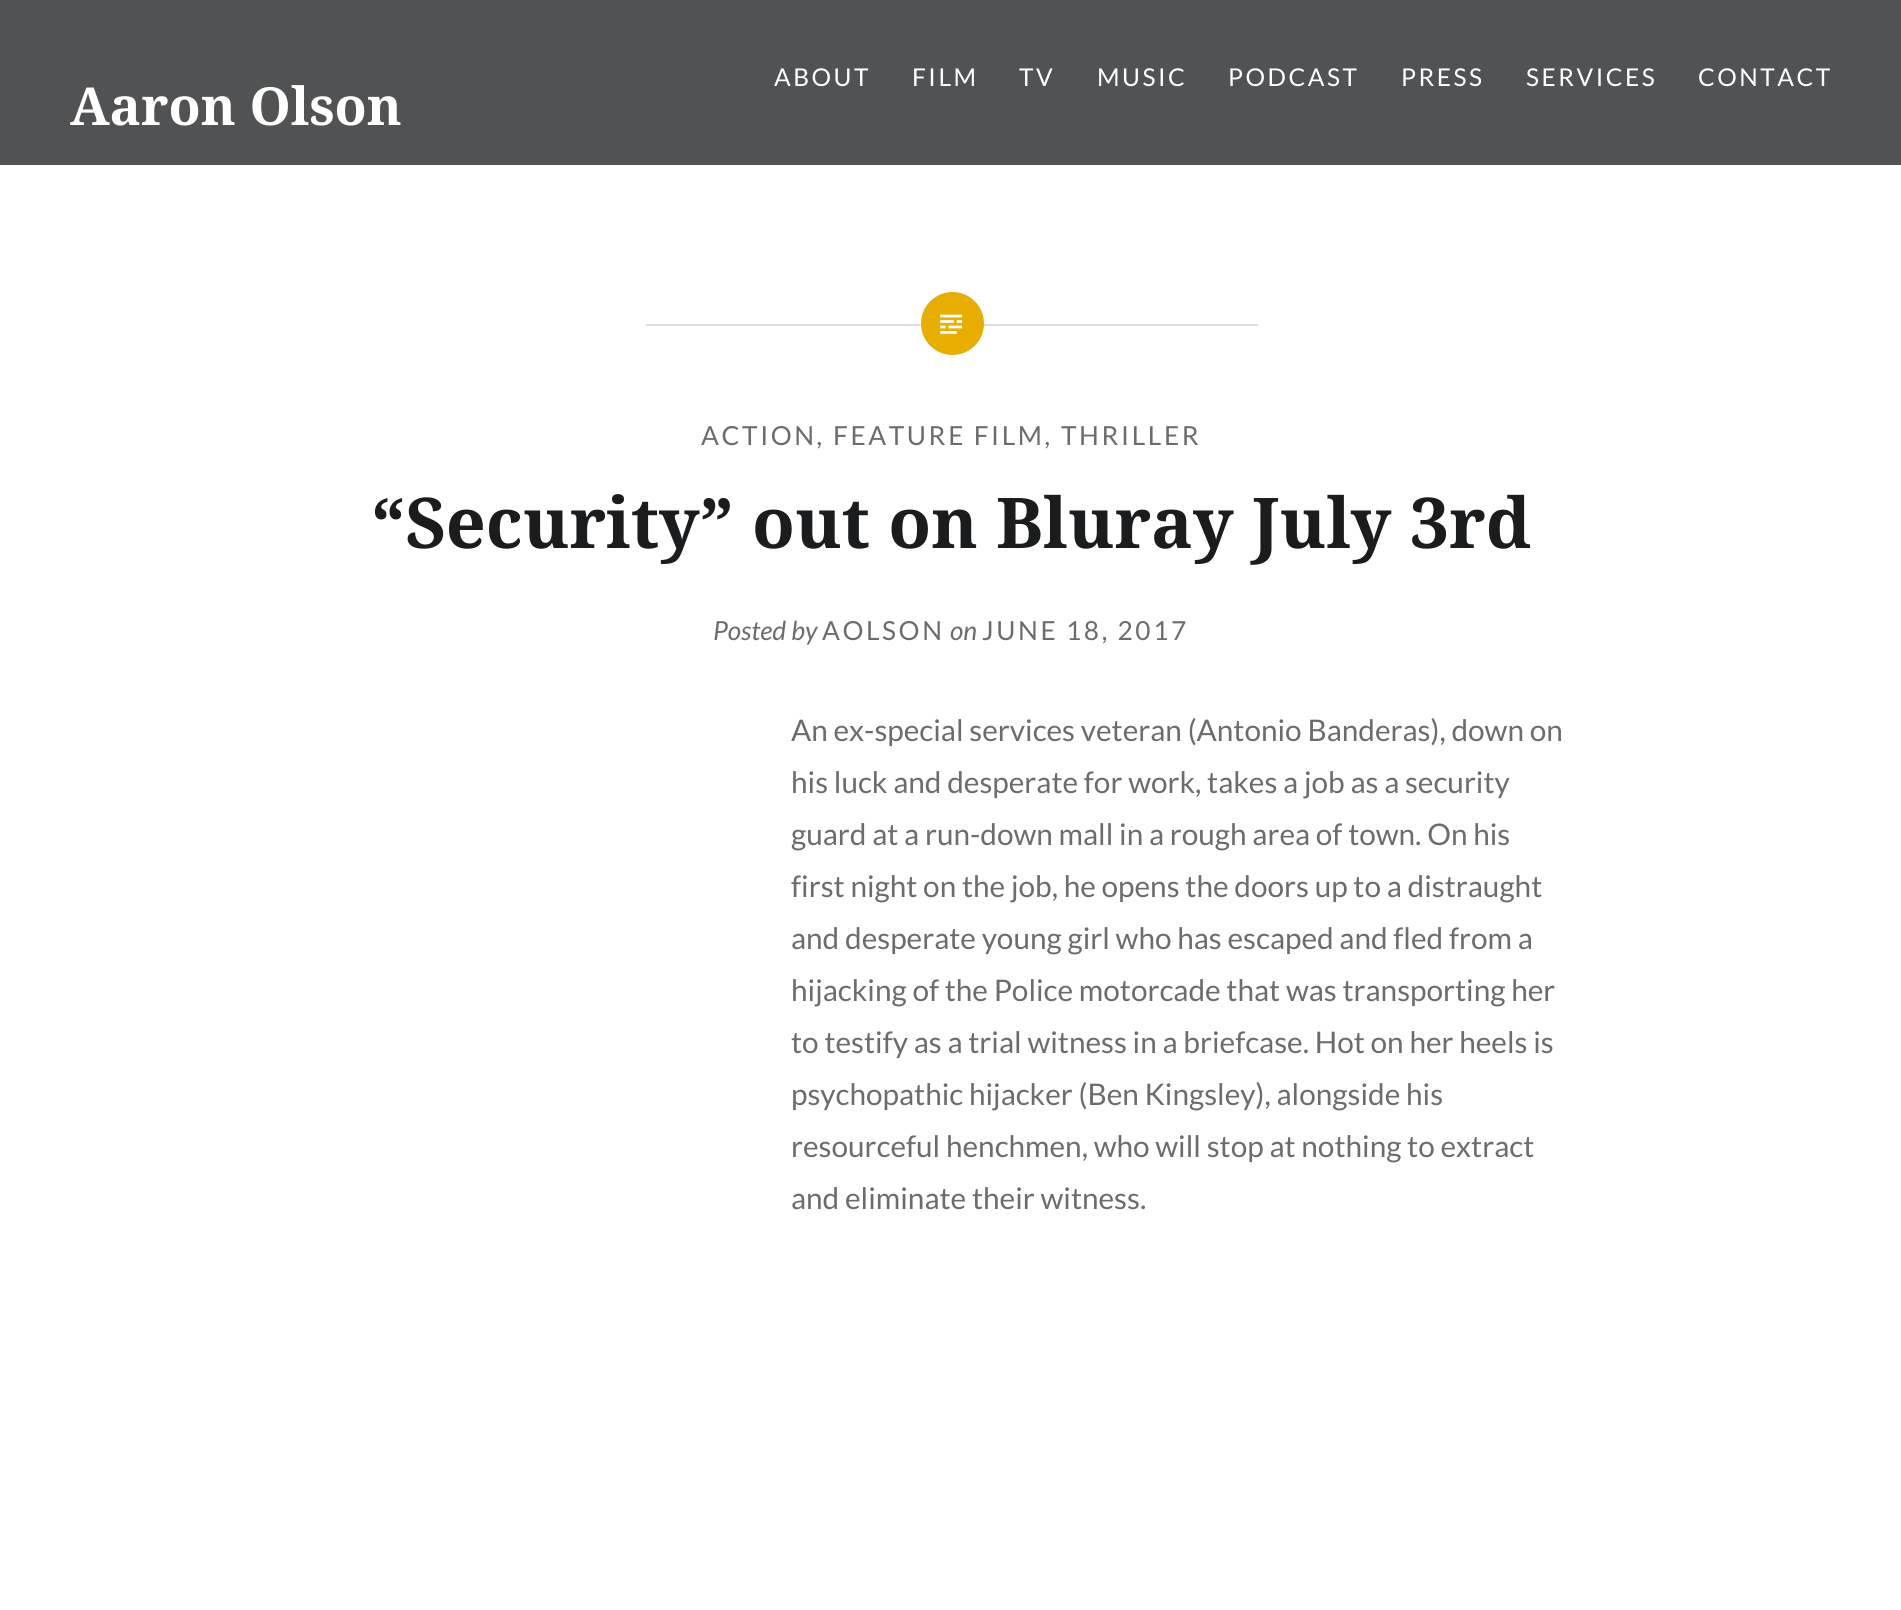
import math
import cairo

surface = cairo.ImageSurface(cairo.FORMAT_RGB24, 1901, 1610)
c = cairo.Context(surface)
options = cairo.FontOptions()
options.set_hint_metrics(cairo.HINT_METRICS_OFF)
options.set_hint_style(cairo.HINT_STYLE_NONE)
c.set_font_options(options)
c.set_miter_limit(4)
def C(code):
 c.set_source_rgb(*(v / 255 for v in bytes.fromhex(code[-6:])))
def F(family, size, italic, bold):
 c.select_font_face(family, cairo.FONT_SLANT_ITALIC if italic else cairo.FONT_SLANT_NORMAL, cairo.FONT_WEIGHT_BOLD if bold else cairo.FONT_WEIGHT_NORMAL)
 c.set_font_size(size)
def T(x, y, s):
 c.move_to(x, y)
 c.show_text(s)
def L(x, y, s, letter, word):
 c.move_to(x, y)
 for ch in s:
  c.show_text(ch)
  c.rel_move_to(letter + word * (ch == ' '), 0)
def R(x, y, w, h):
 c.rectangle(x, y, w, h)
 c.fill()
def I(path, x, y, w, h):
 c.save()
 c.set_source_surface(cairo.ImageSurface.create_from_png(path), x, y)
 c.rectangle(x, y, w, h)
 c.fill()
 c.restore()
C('ffffff')
c.paint()
C('505254')
R(0,0,1901,165)
F('Lato',24.5,0,0)
C('ffffff')
L(774,86,'ABOUT',2.5,0)
L(912,86,'FILM',2.5,0)
L(1019,86,'TV',2.5,0)
L(1097,86,'MUSIC',2.5,0)
L(1228,86,'PODCAST',2.5,0)
L(1401,86,'PRESS',2.5,0)
L(1526,86,'SERVICES',2.5,0)
L(1698,86,'CONTACT',2.5,0)
F('Noto Serif',52.5,0,1)
T(70,125,'Aaron Olson')
C('e0e0e0')
R(646,324,612,2)
C('e7ae01')
c.new_path()
c.arc(952.5,323.5,31.5,0,2 * math.pi)
c.fill()
I('1.png',940,314,23,20)
F('Lato',26.25,0,0)
C('6a6c6e')
L(701,445,'ACTION',2.6,0)
F('Lato',26.25,1,0)
L(817,445,',',2.6,0)
F('Lato',26.25,0,0)
L(833,445,'FEATURE FILM',2.6,0)
F('Lato',26.25,1,0)
L(1045,445,',',2.6,0)
F('Lato',26.25,0,0)
L(1061,445,'THRILLER',2.6,0)
F('Noto Serif',70,0,1)
C('1a1c1e')
T(371,548,'“Security” out on Bluray July 3rd')
F('Lato',26.25,1,0)
C('6a6c6e')
T(713,640,'Posted by')
F('Lato',26.25,0,0)
L(822,640,'AOLSON',2.6,0)
F('Lato',26.25,1,0)
T(950,640,'on')
F('Lato',26.25,0,0)
L(982,640,'JUNE 18, 2017',2.6,0)
F('Lato',29.75,0,0)
T(791,741,'An ex-special services veteran (Antonio Banderas), down on')
T(791,793,'his luck and desperate for work, takes a job as a security')
T(791,845,'guard at a run-down mall in a rough area of town. On his')
T(791,897,'first night on the job, he opens the doors up to a distraught')
T(791,949,'and desperate young girl who has escaped and fled from a')
T(791,1001,'hijacking of the Police motorcade that was transporting her')
T(791,1053,'to testify as a trial witness in a briefcase. Hot on her heels is')
T(791,1105,'psychopathic hijacker (Ben Kingsley), alongside his')
T(791,1157,'resourceful henchmen, who will stop at nothing to extract')
T(791,1209,'and eliminate their witness.')
surface.write_to_png('o.png')
